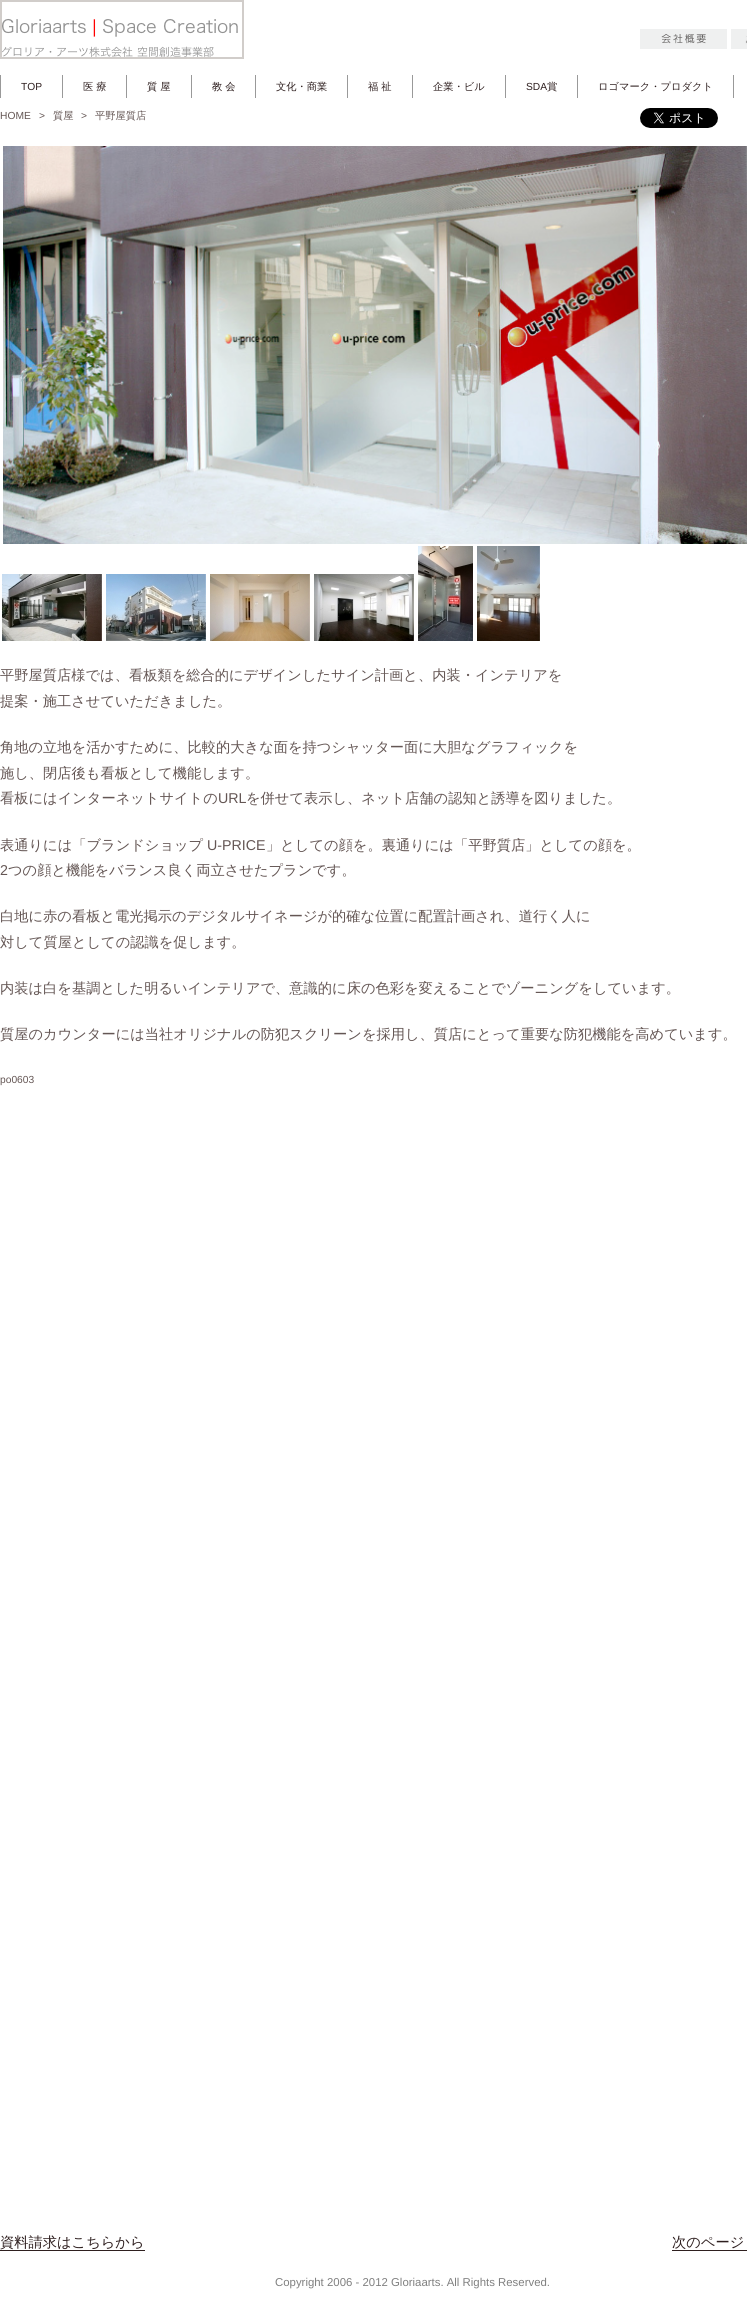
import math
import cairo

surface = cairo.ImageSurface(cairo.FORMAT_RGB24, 747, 2308)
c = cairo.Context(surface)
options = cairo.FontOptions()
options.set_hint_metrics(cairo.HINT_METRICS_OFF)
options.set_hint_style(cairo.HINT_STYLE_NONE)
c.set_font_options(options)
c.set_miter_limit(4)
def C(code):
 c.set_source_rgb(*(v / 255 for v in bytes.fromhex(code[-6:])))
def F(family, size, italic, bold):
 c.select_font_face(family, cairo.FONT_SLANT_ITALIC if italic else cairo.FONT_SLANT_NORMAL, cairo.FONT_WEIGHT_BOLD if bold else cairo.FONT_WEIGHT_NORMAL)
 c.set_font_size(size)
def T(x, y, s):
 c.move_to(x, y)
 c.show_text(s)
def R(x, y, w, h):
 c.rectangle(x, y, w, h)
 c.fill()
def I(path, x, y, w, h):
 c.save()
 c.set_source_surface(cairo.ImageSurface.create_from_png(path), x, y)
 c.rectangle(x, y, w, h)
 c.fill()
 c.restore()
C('ffffff')
c.paint()
C('d1cdca')
R(0,0,244,59)
I('1.png',2,2,240,55)
I('2.png',640,29,87,20)
I('3.png',731,29,16,20)
C('999999')
R(62,75,1,23)
R(0,75,1,23)
F('Liberation Sans',10.25,0,0)
C('2e1f1f')
T(21,90,'TOP')
C('999999')
R(126,75,1,23)
F('WenQuanYi Zen Hei Medium',10.25,0,0)
C('2e1f1f')
T(83,90,'医 療')
C('999999')
R(191,75,1,23)
C('2e1f1f')
T(147,90,'質 屋')
C('999999')
R(255,75,1,23)
C('2e1f1f')
T(212,90,'教 会')
C('999999')
R(347,75,1,23)
C('2e1f1f')
T(276,90,'文化・商業')
C('999999')
R(412,75,1,23)
C('2e1f1f')
T(368,90,'福 祉')
C('999999')
R(505,75,1,23)
C('2e1f1f')
T(433,90,'企業・ビル')
C('999999')
R(577,75,1,23)
F('Liberation Sans',10.25,0,0)
C('2e1f1f')
T(526,90,'SDA')
F('WenQuanYi Zen Hei Medium',10.25,0,0)
T(547,90,'賞')
C('999999')
R(733,75,1,23)
C('2e1f1f')
T(598,90,'ロゴマーク・プロダクト')
F('Liberation Sans',10.25,0,0)
C('645654')
T(0,119,'HOME')
T(39,119,'>')
F('WenQuanYi Zen Hei Medium',10.25,0,0)
T(53,119,'質屋')
F('Liberation Sans',10.25,0,0)
T(81,119,'>')
F('WenQuanYi Zen Hei Medium',10.25,0,0)
T(95,119,'平野屋質店')
I('4.png',640,108,78,20)
I('5.png',3,146,744,398)
I('6.png',2,574,100,67)
I('7.png',106,574,100,67)
I('8.png',210,574,100,67)
I('9.png',314,574,100,67)
I('10.png',418,546,55,95)
I('11.png',477,546,63,95)
F('WenQuanYi Zen Hei Medium',14.25,0,0)
T(0,680,'平野屋質店様では、看板類を総合的にデザインしたサイン計画と、内装・インテリアを')
T(0,706,'提案・施工させていただきました。')
T(0,752,'角地の立地を活かすために、比較的大きな面を持つシャッター面に大胆なグラフィックを')
T(0,778,'施し、閉店後も看板として機能します。')
T(0,803,'看板にはインターネットサイトの')
F('Liberation Sans',14.25,0,0)
T(218,803,'URL')
F('WenQuanYi Zen Hei Medium',14.25,0,0)
T(246,803,'を併せて表示し、ネット店舗の認知と誘導を図りました。')
T(0,850,'表通りには「ブランドショップ')
F('Liberation Sans',14.25,0,0)
T(207,850,'U-PRICE')
F('WenQuanYi Zen Hei Medium',14.25,0,0)
T(266,850,'」としての顔を。裏通りには「平野質店」としての顔を。')
F('Liberation Sans',14.25,0,0)
T(0,875,'2')
F('WenQuanYi Zen Hei Medium',14.25,0,0)
T(8,875,'つの顔と機能をバランス良く両立させたプランです。')
T(0,921,'白地に赤の看板と電光掲示のデジタルサイネージが的確な位置に配置計画され、道行く人に')
T(0,947,'対して質屋としての認識を促します。')
T(0,993,'内装は白を基調とした明るいインテリアで、意識的に床の色彩を変えることでゾーニングをしています。')
T(0,1039,'質屋のカウンターには当社オリジナルの防犯スクリーンを採用し、質店にとって重要な防犯機能を高めています。')
F('Liberation Sans',10.25,0,0)
T(0,1083,'po0603')
F('WenQuanYi Zen Hei Medium',14.25,0,0)
C('2e1f1f')
T(0,2247,'資料請求はこちらから')
R(0,2250,145,1)
T(672,2247,'次のページ')
R(672,2250,75,1)
F('Liberation Sans',11.4,0,0)
C('808080')
T(275,2286,'Copyright 2006 - 2012 Gloriaarts. All Rights Reserved.')
surface.write_to_png('o.png')
